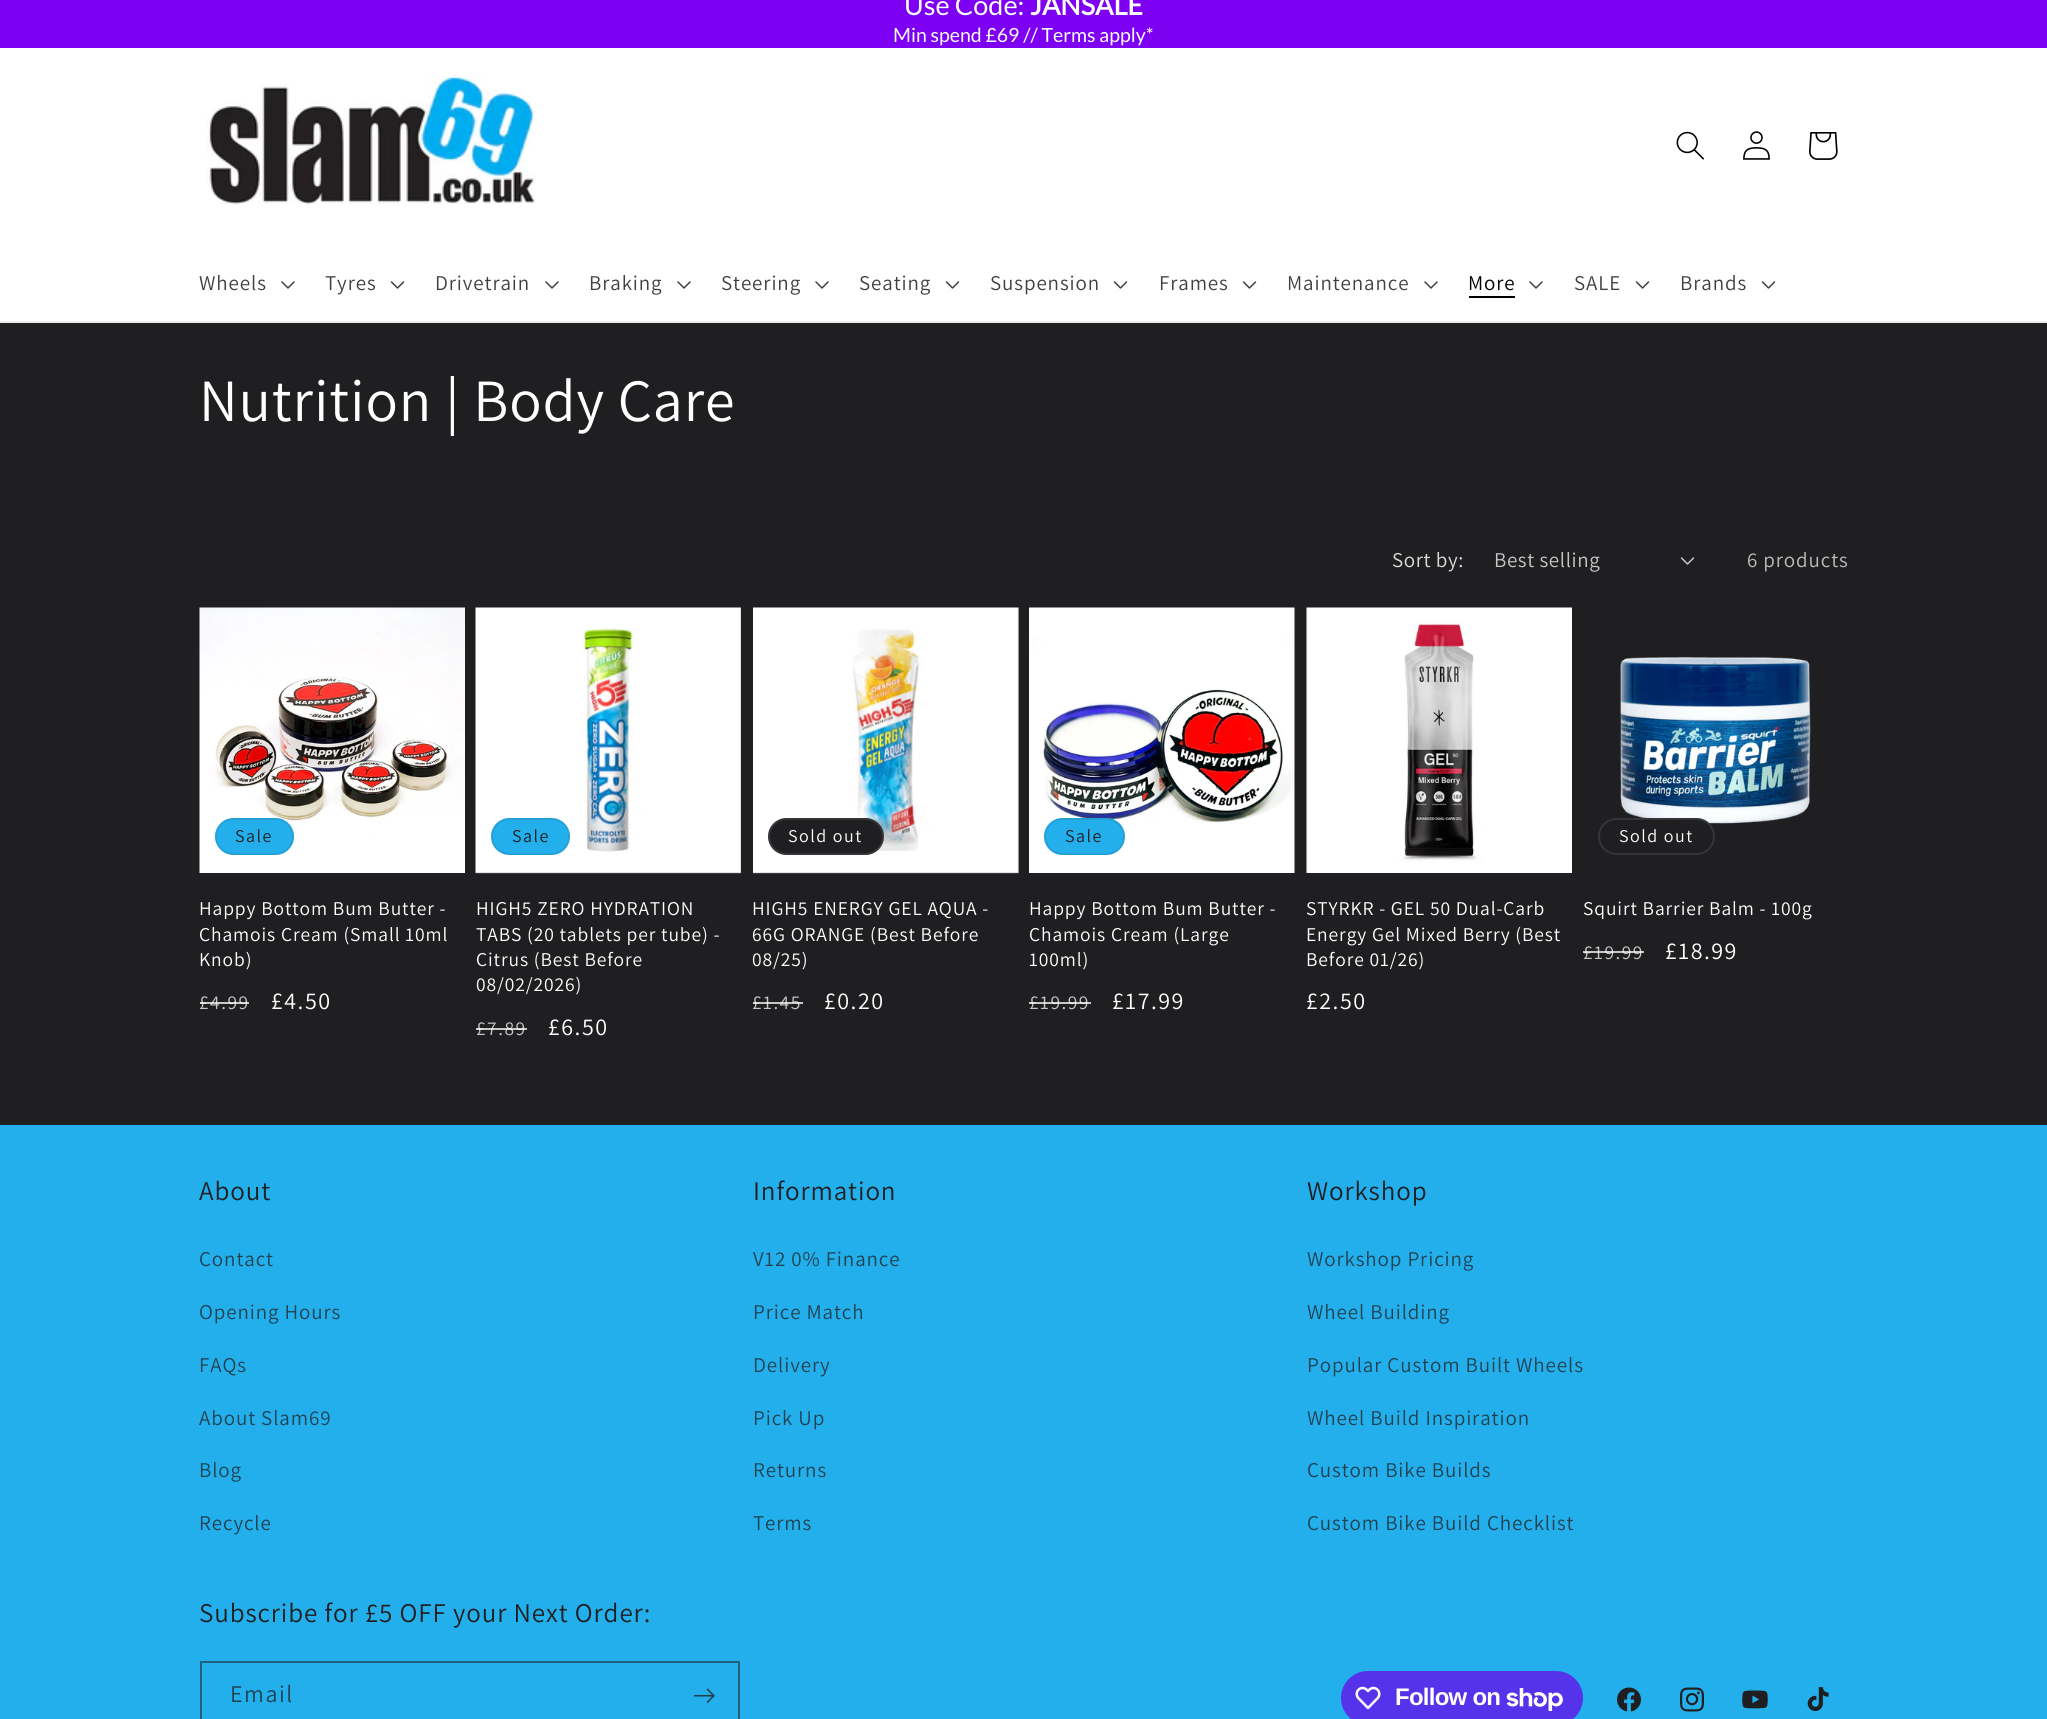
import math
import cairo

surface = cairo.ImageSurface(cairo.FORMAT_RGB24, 2047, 1719)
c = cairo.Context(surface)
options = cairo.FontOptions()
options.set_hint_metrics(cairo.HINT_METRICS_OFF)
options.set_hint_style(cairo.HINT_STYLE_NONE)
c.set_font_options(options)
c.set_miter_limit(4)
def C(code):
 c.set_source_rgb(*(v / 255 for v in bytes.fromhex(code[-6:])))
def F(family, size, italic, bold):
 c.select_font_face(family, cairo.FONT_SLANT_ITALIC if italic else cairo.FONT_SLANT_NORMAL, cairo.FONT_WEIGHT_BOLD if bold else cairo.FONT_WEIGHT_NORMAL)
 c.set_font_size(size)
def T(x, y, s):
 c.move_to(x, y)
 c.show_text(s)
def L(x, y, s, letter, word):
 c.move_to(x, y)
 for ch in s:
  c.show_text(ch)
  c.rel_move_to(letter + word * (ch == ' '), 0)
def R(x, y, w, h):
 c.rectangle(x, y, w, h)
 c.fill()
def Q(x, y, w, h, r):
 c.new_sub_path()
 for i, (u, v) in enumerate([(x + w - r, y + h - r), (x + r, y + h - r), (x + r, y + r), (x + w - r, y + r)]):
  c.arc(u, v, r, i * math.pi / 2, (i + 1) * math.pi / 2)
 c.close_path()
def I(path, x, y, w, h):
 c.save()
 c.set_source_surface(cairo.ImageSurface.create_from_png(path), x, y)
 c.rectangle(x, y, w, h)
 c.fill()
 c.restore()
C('ffffff')
c.paint()
C('7e00f2')
R(0,0,2047,48)
F('Lato',27,0,0)
C('ffffff')
T(904,15,'Use Code:')
F('Lato',27,0,1)
T(1030,15,'JANSALE')
F('Lato',19.5,0,0)
T(893,42,'Min spend £69 // Terms apply*')
C('ebebeb')
R(0,321,2047,2)
I('1.png',206,74,330,131)
I('2.png',1676,131,28,29)
I('3.png',1743,131,27,29)
I('4.png',1809,132,29,28)
F('Assistant',21,0,0)
C('404040')
L(199,290,'Wheels',.9,0)
I('5.png',281,281,14,8)
L(325,290,'Tyres',.9,0)
I('6.png',390,281,15,8)
L(435,290,'Drivetrain',.9,0)
I('5.png',545,281,14,8)
L(589,290,'Braking',.9,0)
I('5.png',677,281,14,8)
L(721,290,'Steering',.9,0)
I('5.png',815,281,14,8)
L(859,290,'Seating',.9,0)
I('6.png',945,281,15,8)
L(990,290,'Suspension',.9,0)
I('6.png',1113,281,15,8)
L(1159,290,'Frames',.9,0)
I('6.png',1242,281,15,8)
L(1287,290,'Maintenance',.9,0)
I('5.png',1424,281,14,8)
C('000000')
L(1468,290,'More',.9,0)
R(1469,296,46,2)
I('5.png',1529,281,14,8)
C('404040')
L(1574,290,'SALE',.9,0)
I('6.png',1635,281,15,8)
L(1680,290,'Brands',.9,0)
I('6.png',1761,281,15,8)
C('1f1f21')
R(0,323,2047,802)
F('Assistant',60,0,0)
C('ffffff')
L(199,421,'Nutrition | Body Care',.9,0)
F('Assistant',21,0,0)
C('ddddde')
L(1392,567,'Sort by:',.6,0)
C('c7c7c8')
L(1494,567,'Best selling',.6,0)
I('7.png',1680,557,15,8)
C('bcbcbc')
L(1747,567,'6 products',.9,0)
I('8.png',199,607,266,266)
C('23afeb')
Q(215,818,79,37,18.5)
c.fill()
Q(216,819,77,35,17.5)
c.set_source_rgba(0.122,0.122,0.129,0.1)
c.stroke()
F('Assistant',18,0,0)
C('1f1f21')
L(235,842,'Sale',1.5,0)
F('Assistant',19.5,0,0)
C('ffffff')
L(199,915,'Happy Bottom Bum Butter -',.9,0)
L(199,941,'Chamois Cream (Small 10ml',.9,0)
L(199,966,'Knob)',.9,0)
C('c7c7c8')
L(199,1009,'£4.99',1.5,0)
c.set_source_rgba(1,1,1,0.75)
R(200,1002,49,2)
F('Assistant',24,0,0)
C('ffffff')
L(271,1009,'£4.50',1.5,0)
I('9.png',475,607,266,267)
C('23afeb')
Q(491,818,79,37,18.5)
c.fill()
Q(492,819,77,35,17.5)
c.set_source_rgba(0.122,0.122,0.129,0.1)
c.stroke()
F('Assistant',18,0,0)
C('1f1f21')
L(512,842,'Sale',1.5,0)
F('Assistant',19.5,0,0)
C('ffffff')
L(476,915,'HIGH5 ZERO HYDRATION',.9,0)
L(476,941,'TABS (20 tablets per tube) -',.9,0)
L(476,966,'Citrus (Best Before',.9,0)
L(476,991,'08/02/2026)',.9,0)
C('c7c7c8')
L(476,1035,'£7.89',1.5,0)
c.set_source_rgba(1,1,1,0.75)
R(476,1028,51,2)
F('Assistant',24,0,0)
C('ffffff')
L(548,1035,'£6.50',1.5,0)
I('10.png',753,607,266,267)
C('1f1f21')
Q(768,818,116,37,18.5)
c.fill()
Q(769,819,114,35,17.5)
c.set_source_rgba(1,1,1,0.1)
c.stroke()
F('Assistant',18,0,0)
C('ffffff')
L(788,842,'Sold out',1.5,0)
F('Assistant',19.5,0,0)
L(752,915,'HIGH5 ENERGY GEL AQUA -',.9,0)
L(752,941,'66G ORANGE (Best Before',.9,0)
L(752,966,'08/25)',.9,0)
C('c7c7c8')
L(752,1009,'£1.45',1.5,0)
c.set_source_rgba(1,1,1,0.75)
R(753,1002,50,2)
F('Assistant',24,0,0)
C('ffffff')
L(824,1009,'£0.20',1.5,0)
I('11.png',1029,607,266,266)
C('23afeb')
Q(1044,818,81,37,18.5)
c.fill()
Q(1045,819,79,35,17.5)
c.set_source_rgba(0.122,0.122,0.129,0.1)
c.stroke()
F('Assistant',18,0,0)
C('1f1f21')
L(1065,842,'Sale',1.5,0)
F('Assistant',19.5,0,0)
C('ffffff')
L(1029,915,'Happy Bottom Bum Butter -',.9,0)
L(1029,941,'Chamois Cream (Large',.9,0)
L(1029,966,'100ml)',.9,0)
C('c7c7c8')
L(1029,1009,'£19.99',1.5,0)
c.set_source_rgba(1,1,1,0.75)
R(1029,1002,62,2)
F('Assistant',24,0,0)
C('ffffff')
L(1112,1009,'£17.99',1.5,0)
I('12.png',1306,607,266,266)
F('Assistant',19.5,0,0)
L(1306,915,'STYRKR - GEL 50 Dual-Carb',.9,0)
L(1306,941,'Energy Gel Mixed Berry (Best',.9,0)
L(1306,966,'Before 01/26)',.9,0)
F('Assistant',24,0,0)
L(1306,1009,'£2.50',1.5,0)
I('13.png',1620,657,191,167)
C('1f1f21')
Q(1598,818,117,37,18.5)
c.fill()
Q(1599,819,115,35,17.5)
c.set_source_rgba(1,1,1,0.1)
c.stroke()
F('Assistant',18,0,0)
C('ffffff')
L(1619,842,'Sold out',1.5,0)
F('Assistant',19.5,0,0)
L(1583,915,'Squirt Barrier Balm - 100g',.9,0)
C('c7c7c8')
L(1583,959,'£19.99',1.5,0)
c.set_source_rgba(1,1,1,0.75)
R(1583,951,61,2)
F('Assistant',24,0,0)
C('ffffff')
L(1665,959,'£18.99',1.5,0)
C('23afeb')
R(0,1125,2047,594)
F('Assistant',27,0,0)
C('1f1f21')
L(199,1200,'About',.9,0)
F('Assistant',21,0,0)
C('204354')
L(199,1266,'Contact',.9,0)
L(199,1319,'Opening Hours',.9,0)
L(199,1372,'FAQs',.9,0)
L(199,1425,'About Slam69',.9,0)
L(199,1477,'Blog',.9,0)
L(199,1530,'Recycle',.9,0)
F('Assistant',27,0,0)
C('1f1f21')
L(753,1200,'Information',.9,0)
F('Assistant',21,0,0)
C('204354')
L(753,1266,'V12 0% Finance',.9,0)
L(753,1319,'Price Match',.9,0)
L(753,1372,'Delivery',.9,0)
L(753,1425,'Pick Up',.9,0)
L(753,1477,'Returns',.9,0)
L(753,1530,'Terms',.9,0)
F('Assistant',27,0,0)
C('1f1f21')
L(1307,1200,'Workshop',.9,0)
F('Assistant',21,0,0)
C('204354')
L(1307,1266,'Workshop Pricing',.9,0)
L(1307,1319,'Wheel Building',.9,0)
L(1307,1372,'Popular Custom Built Wheels',.9,0)
L(1307,1425,'Wheel Build Inspiration',.9,0)
L(1307,1477,'Custom Bike Builds',.9,0)
L(1307,1530,'Custom Bike Build Checklist',.9,0)
F('Assistant',27,0,0)
C('1f1f21')
L(199,1622,'Subscribe for £5 OFF your Next Order:',.9,0)
c.rectangle(201,1662,538,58)
C('21607c')
c.stroke()
F('Assistant',24,0,0)
C('204354')
L(230,1702,'Email',1.5,0)
I('14.png',693,1688,22,15)
C('5433eb')
Q(1341,1671,242,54,27)
c.fill()
I('15.png',1355,1686,26,24)
F('Liberation Sans',24,0,1)
C('ffffff')
L(1395,1705,'Follow on',-.75,0)
I('16.png',1506,1688,57,23)
I('17.png',1617,1687,24,25)
I('18.png',1680,1687,24,25)
I('19.png',1742,1690,26,19)
I('20.png',1807,1687,22,25)
surface.write_to_png('o.png')
